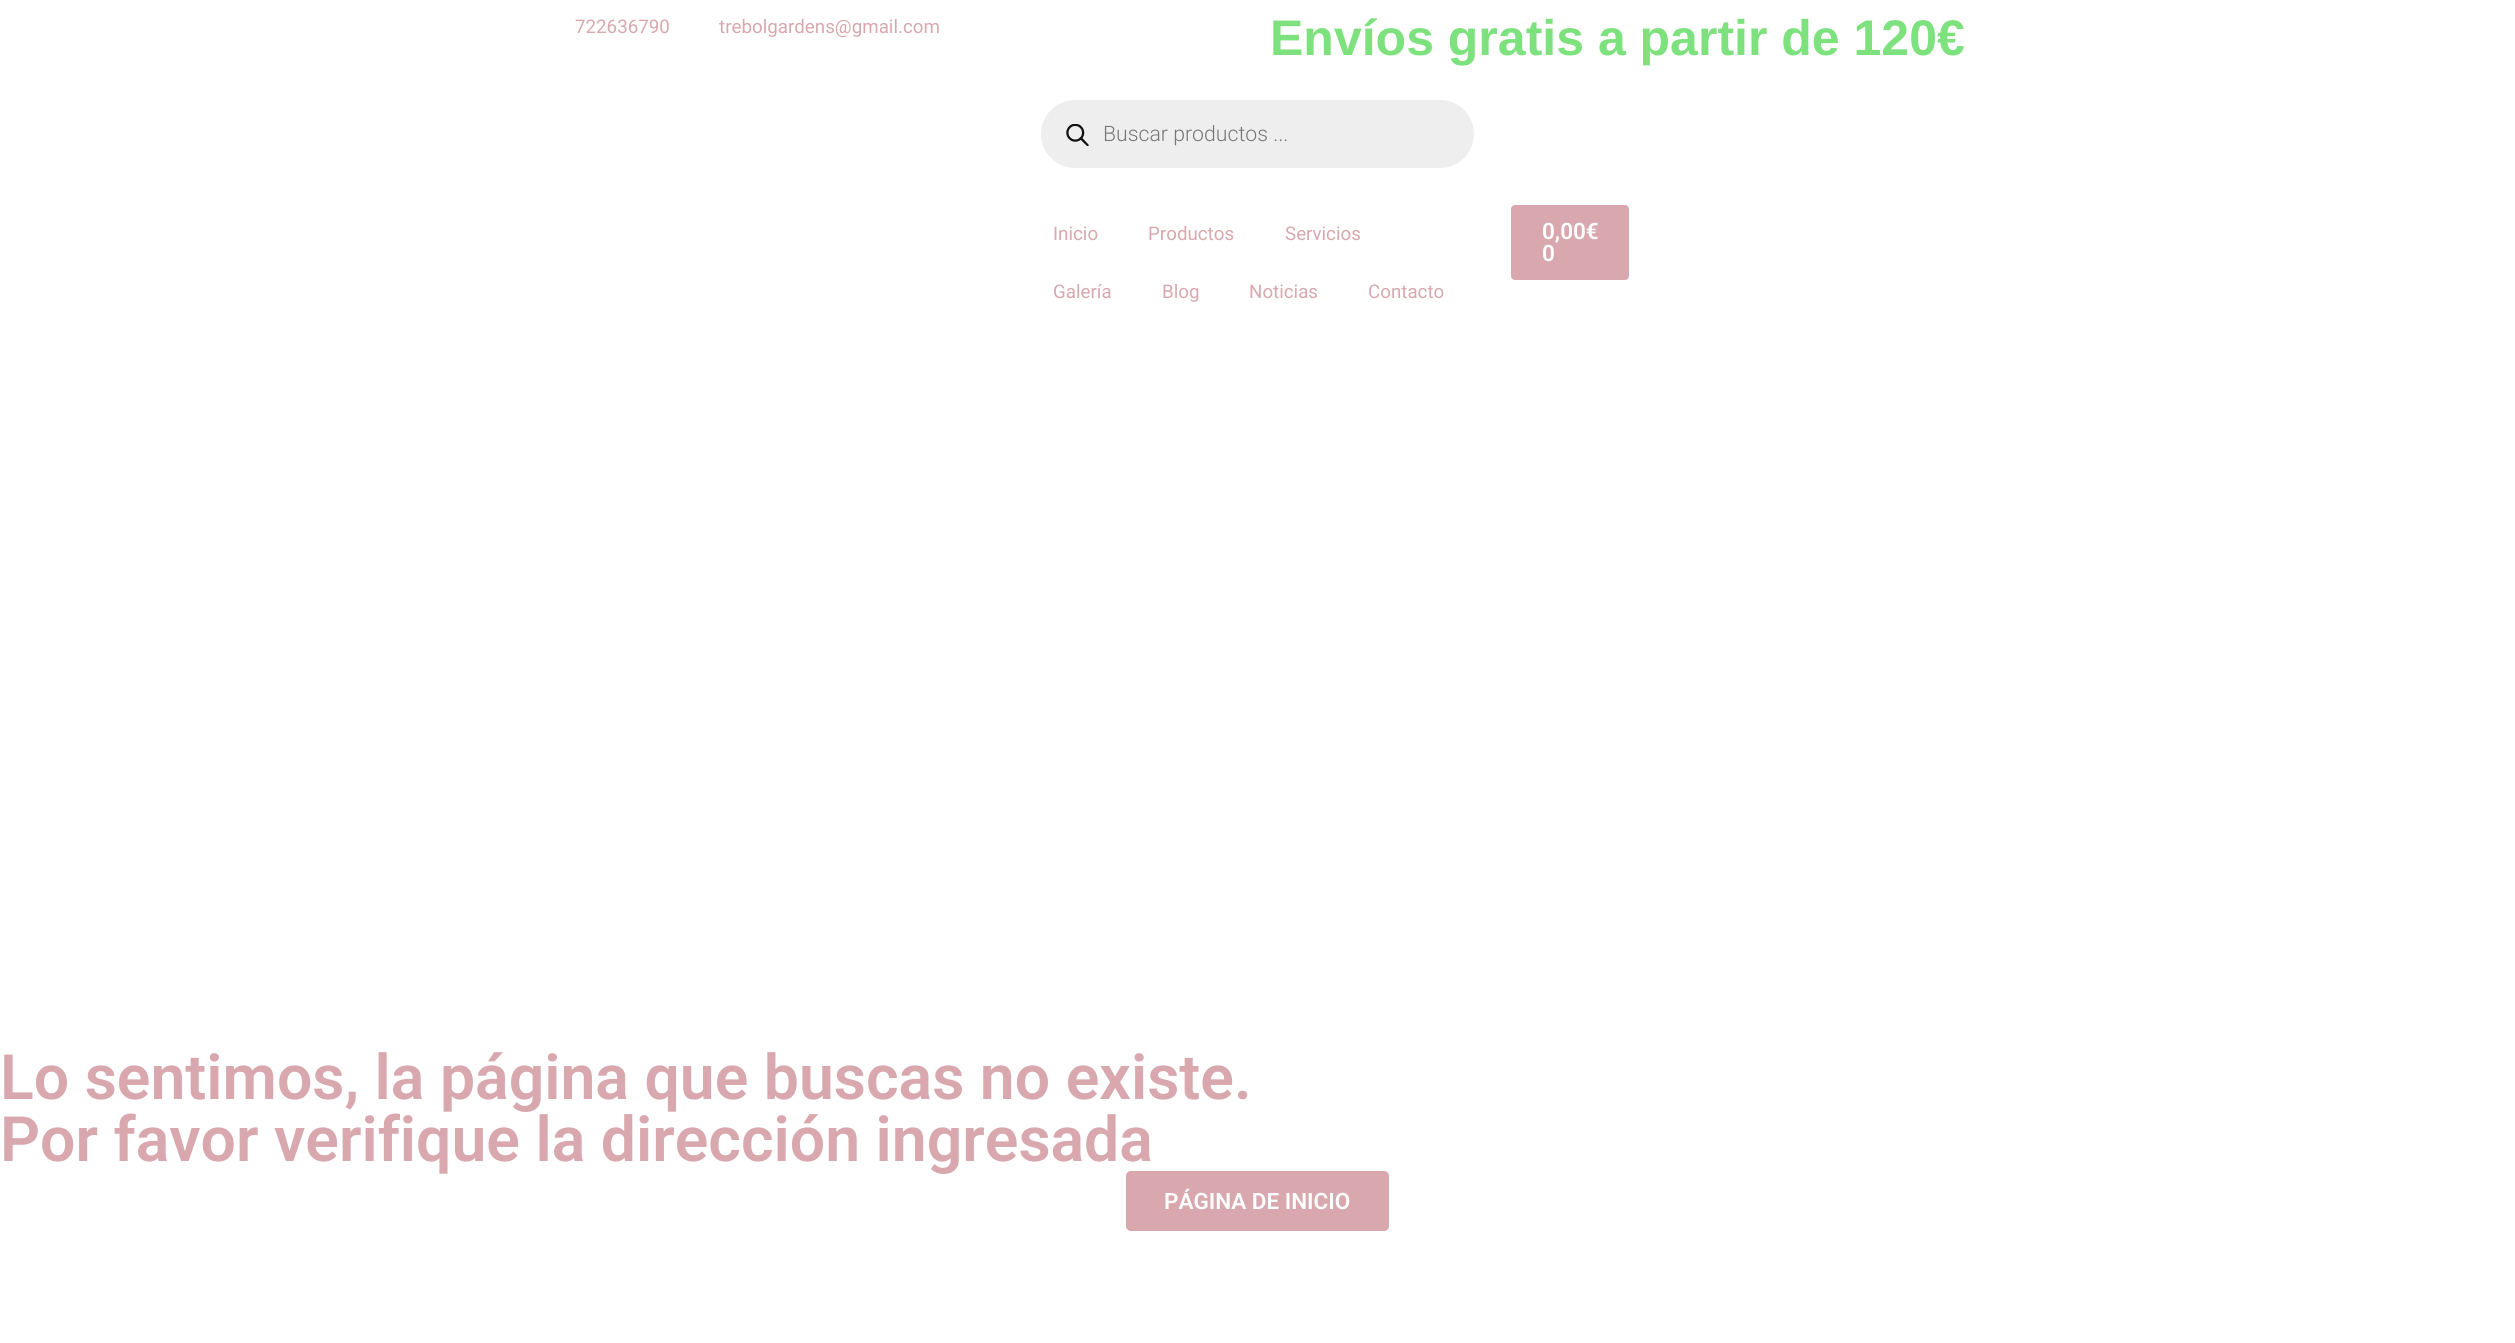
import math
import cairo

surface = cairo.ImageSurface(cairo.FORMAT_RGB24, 2515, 1343)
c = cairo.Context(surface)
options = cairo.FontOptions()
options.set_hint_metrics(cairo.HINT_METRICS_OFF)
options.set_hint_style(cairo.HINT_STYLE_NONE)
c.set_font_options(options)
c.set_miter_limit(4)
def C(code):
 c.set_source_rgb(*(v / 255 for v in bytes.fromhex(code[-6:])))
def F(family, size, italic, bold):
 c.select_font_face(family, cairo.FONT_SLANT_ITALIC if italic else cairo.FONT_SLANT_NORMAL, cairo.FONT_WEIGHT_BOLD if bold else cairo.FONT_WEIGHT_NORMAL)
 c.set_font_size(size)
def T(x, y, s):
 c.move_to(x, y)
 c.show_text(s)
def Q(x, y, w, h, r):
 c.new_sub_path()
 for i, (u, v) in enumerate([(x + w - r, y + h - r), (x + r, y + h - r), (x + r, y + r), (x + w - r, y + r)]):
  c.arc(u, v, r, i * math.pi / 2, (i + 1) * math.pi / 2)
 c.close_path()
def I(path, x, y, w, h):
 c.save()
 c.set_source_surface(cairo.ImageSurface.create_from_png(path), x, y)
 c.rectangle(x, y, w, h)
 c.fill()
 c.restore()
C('ffffff')
c.paint()
F('Roboto',18.75,0,0)
C('d8a8ae')
T(575,33,'722636790')
T(719,33,'trebolgardens@gmail.com')
F('Liberation Sans',50,0,1)
C('7de17d')
T(1270,55,'Envíos gratis a partir de 120€')
C('eeeeee')
Q(1041,100,433,68,34)
c.fill()
I('1.png',1066,124,23,22)
F('Roboto Light',21.25,0,0)
C('777777')
T(1103,141,'Buscar productos ...')
F('Roboto',18.75,0,0)
C('d8a8ae')
T(1053,240,'Inicio')
T(1148,240,'Productos')
T(1285,240,'Servicios')
T(1053,298,'Galería')
T(1162,298,'Blog')
T(1249,298,'Noticias')
T(1368,298,'Contacto')
Q(1511,205,118,75,4)
c.fill()
F('Roboto SemiBold',22.5,0,0)
C('ffffff')
T(1542,239,'0,00€')
T(1542,261,'0')
F('Roboto SemiBold',62.5,0,0)
C('d8a8ae')
T(0,1099,'Lo sentimos, la página que buscas no existe.')
T(0,1161,'Por favor verifique la dirección ingresada')
Q(1126,1171,263,60,5)
c.fill()
F('Roboto SemiBold',22.5,0,0)
C('ffffff')
T(1164,1209,'PÁGINA DE INICIO')
surface.write_to_png('o.png')
